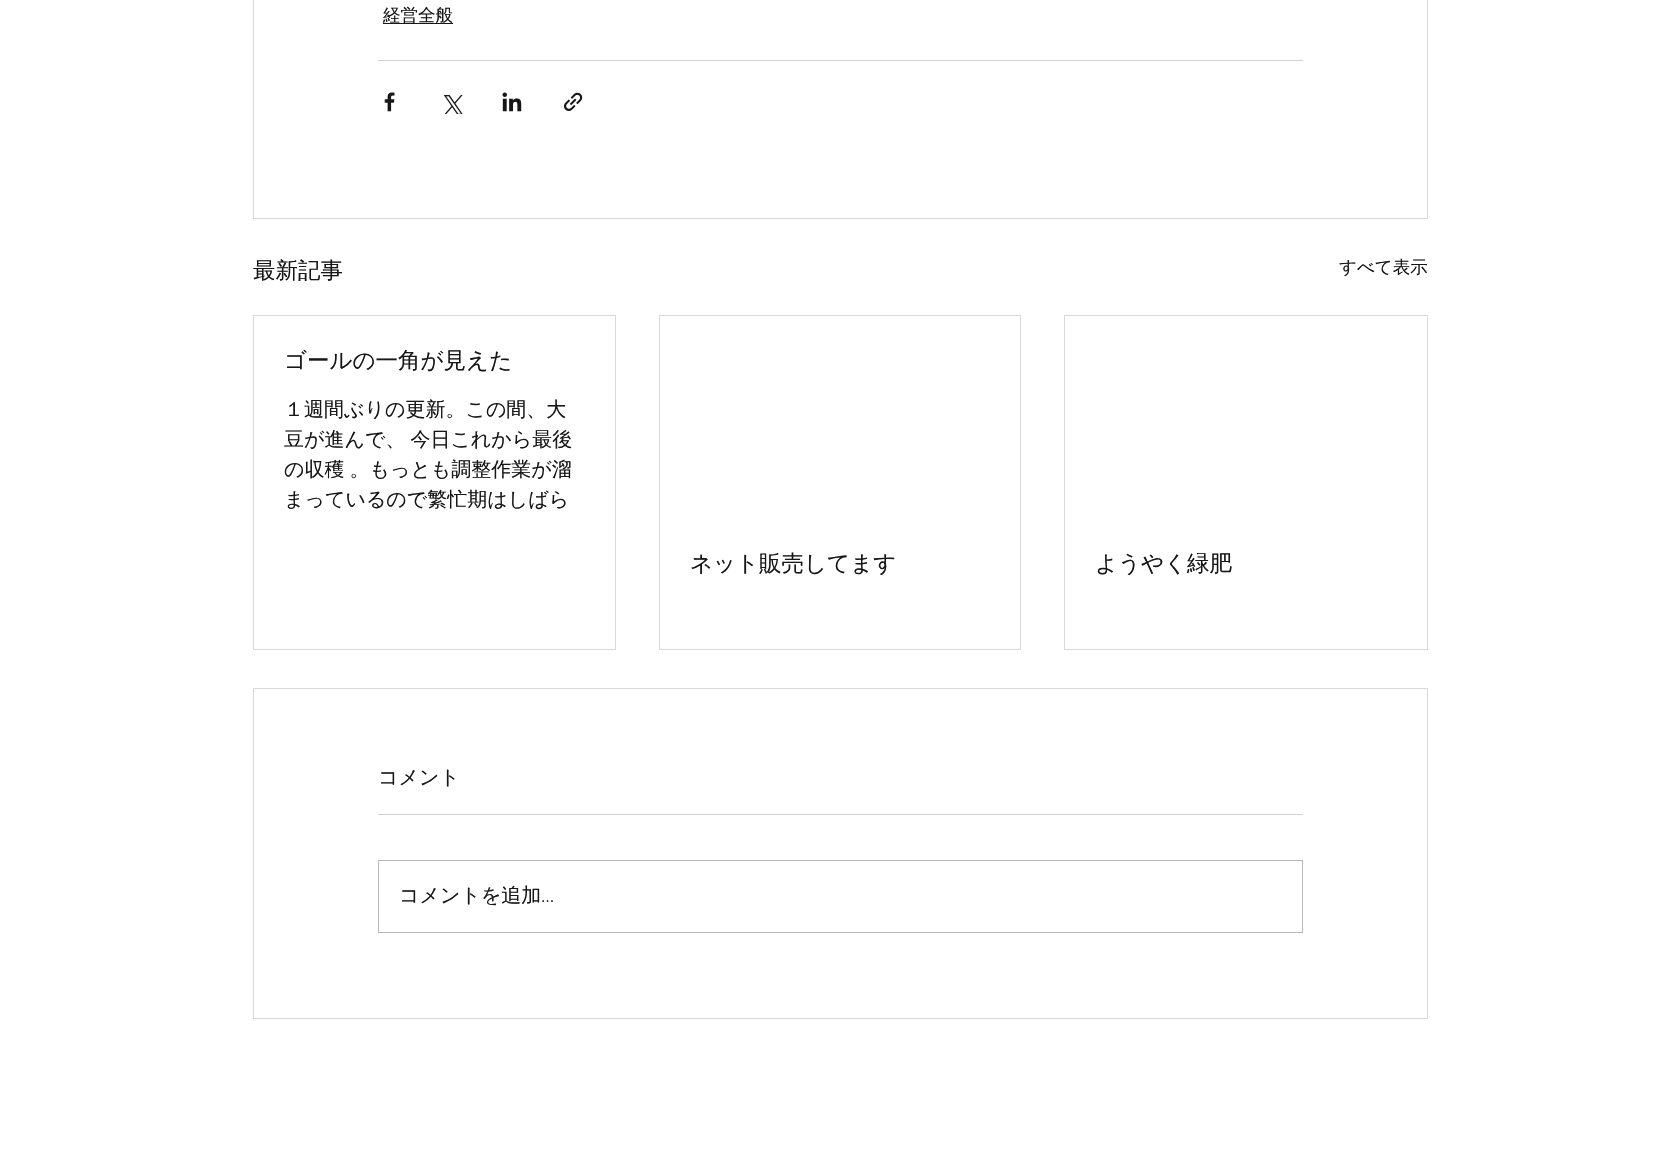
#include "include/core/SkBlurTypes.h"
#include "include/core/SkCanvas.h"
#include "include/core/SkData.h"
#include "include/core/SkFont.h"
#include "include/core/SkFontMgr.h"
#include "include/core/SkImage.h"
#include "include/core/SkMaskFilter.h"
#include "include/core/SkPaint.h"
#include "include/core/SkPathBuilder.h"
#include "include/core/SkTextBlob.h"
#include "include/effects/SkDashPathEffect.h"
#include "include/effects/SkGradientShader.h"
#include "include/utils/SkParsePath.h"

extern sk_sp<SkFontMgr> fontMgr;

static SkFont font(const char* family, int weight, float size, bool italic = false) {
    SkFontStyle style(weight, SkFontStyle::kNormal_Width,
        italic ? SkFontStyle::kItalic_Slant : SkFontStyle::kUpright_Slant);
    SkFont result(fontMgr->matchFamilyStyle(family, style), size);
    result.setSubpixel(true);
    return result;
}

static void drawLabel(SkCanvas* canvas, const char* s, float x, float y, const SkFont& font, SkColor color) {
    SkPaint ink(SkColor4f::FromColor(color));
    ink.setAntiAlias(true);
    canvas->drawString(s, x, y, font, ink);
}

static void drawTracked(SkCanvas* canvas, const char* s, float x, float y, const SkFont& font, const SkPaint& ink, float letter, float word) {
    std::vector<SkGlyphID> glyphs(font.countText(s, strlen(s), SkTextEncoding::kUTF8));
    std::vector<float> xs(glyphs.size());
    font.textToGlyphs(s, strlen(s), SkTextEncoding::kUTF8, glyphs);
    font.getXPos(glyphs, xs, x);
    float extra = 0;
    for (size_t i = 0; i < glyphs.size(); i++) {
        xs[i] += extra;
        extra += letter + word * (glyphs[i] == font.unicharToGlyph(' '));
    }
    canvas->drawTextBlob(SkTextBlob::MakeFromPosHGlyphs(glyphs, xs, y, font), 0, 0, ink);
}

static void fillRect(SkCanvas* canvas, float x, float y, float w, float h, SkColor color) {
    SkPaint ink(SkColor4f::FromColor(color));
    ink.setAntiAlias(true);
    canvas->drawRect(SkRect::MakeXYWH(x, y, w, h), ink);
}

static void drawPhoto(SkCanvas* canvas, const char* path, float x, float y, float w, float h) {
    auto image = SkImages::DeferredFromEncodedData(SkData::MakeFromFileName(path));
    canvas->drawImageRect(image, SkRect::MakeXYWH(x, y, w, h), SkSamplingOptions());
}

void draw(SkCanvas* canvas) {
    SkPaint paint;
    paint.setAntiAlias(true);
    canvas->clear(0xFFFFFFFF);
    paint.setStroke(true);
    paint.setStrokeWidth(1);
    paint.setColor(0xFFD9D9D9);
    canvas->drawRect(SkRect::MakeXYWH(253.5f, -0.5f, 1174, 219), paint);
    fillRect(canvas, 383, 23, 70, 1, 0xFF171717);
    SkFont font1 = font("WenQuanYi Zen Hei", 500, 17.5f);
    drawLabel(canvas, "経営全般", 383, 21, font1, 0xFF171717);
    fillRect(canvas, 378, 60, 925, 1, 0xFFD1D1D1);
    drawPhoto(canvas, "assets/img1.png", 384, 92, 11, 20);
    drawPhoto(canvas, "assets/img2.png", 443, 95, 20, 19);
    drawPhoto(canvas, "assets/img3.png", 502, 92, 20, 20);
    drawPhoto(canvas, "assets/img4.png", 564, 92, 19, 19);
    SkFont font2 = font("WenQuanYi Zen Hei", 500, 22.5f);
    drawLabel(canvas, "最新記事", 253, 278, font2, 0xFF171717);
    drawLabel(canvas, "すべて表示", 1339, 273, font1, 0xFF171717);
    canvas->drawRect(SkRect::MakeXYWH(253.5f, 315.5f, 362, 334), paint);
    drawLabel(canvas, "ゴールの一角が見えた", 284, 368, font2, 0xFF171717);
    SkFont font3 = font("WenQuanYi Zen Hei", 500, 20);
    drawLabel(canvas, "１週間ぶりの更新。この間、大", 284, 416, font3, 0xFF171717);
    paint.setStroke(false);
    paint.setColor(0xFF171717);
    drawTracked(canvas, "豆が進んで、 今日これから最後", 284, 446, font3, paint, 0, -1);
    drawTracked(canvas, "の収穫 。もっとも調整作業が溜", 284, 476, font3, paint, 0, -1);
    drawLabel(canvas, "まっているので繁忙期はしばら", 284, 506, font3, 0xFF171717);
    paint.setStroke(true);
    paint.setColor(0xFFD9D9D9);
    canvas->drawRect(SkRect::MakeXYWH(659.5f, 315.5f, 361, 334), paint);
    drawLabel(canvas, "ネット販売してます", 690, 571, font2, 0xFF171717);
    canvas->drawRect(SkRect::MakeXYWH(1064.5f, 315.5f, 363, 334), paint);
    drawLabel(canvas, "ようやく緑肥", 1095, 571, font2, 0xFF171717);
    canvas->drawRect(SkRect::MakeXYWH(253.5f, 688.5f, 1174, 330), paint);
    drawLabel(canvas, "コメント", 378, 784, font3, 0xFF171717);
    fillRect(canvas, 378, 814, 925, 1, 0xFFD1D1D1);
    paint.setColor(0xFFB9B9B9);
    canvas->drawRect(SkRect::MakeXYWH(378.5f, 860.5f, 924, 72), paint);
    drawLabel(canvas, "コメントを追加", 399, 902, font3, 0xFF171717);
    SkFont font4 = font("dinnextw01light", 300, 20);
    drawLabel(canvas, "…", 541, 902, font4, 0xFF171717);
}
